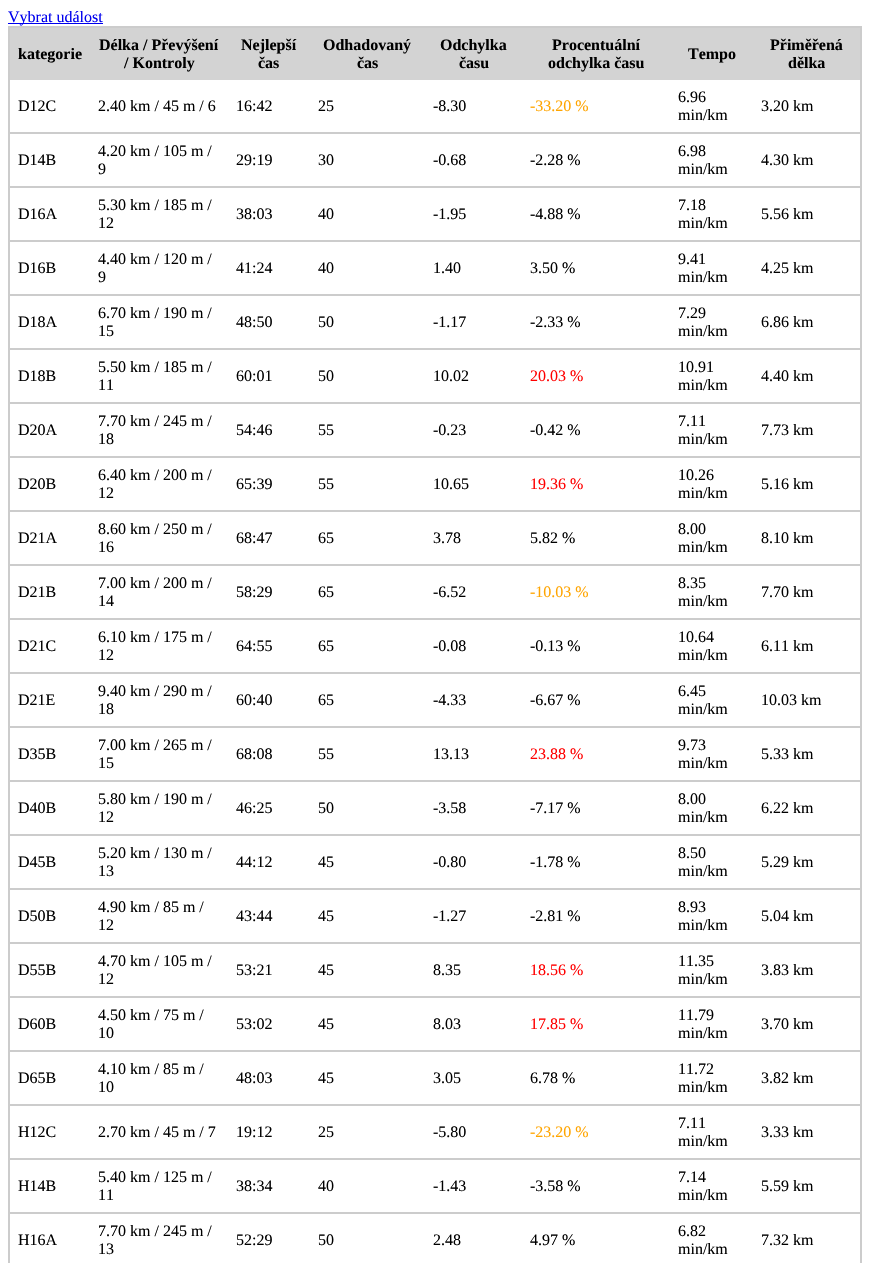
#include "include/core/SkBlurTypes.h"
#include "include/core/SkCanvas.h"
#include "include/core/SkData.h"
#include "include/core/SkFont.h"
#include "include/core/SkFontMgr.h"
#include "include/core/SkImage.h"
#include "include/core/SkMaskFilter.h"
#include "include/core/SkPaint.h"
#include "include/core/SkPathBuilder.h"
#include "include/core/SkTextBlob.h"
#include "include/effects/SkDashPathEffect.h"
#include "include/effects/SkGradientShader.h"
#include "include/utils/SkParsePath.h"

extern sk_sp<SkFontMgr> fontMgr;

static SkFont font(const char* family, int weight, float size, bool italic = false) {
    SkFontStyle style(weight, SkFontStyle::kNormal_Width,
        italic ? SkFontStyle::kItalic_Slant : SkFontStyle::kUpright_Slant);
    SkFont result(fontMgr->matchFamilyStyle(family, style), size);
    result.setSubpixel(true);
    return result;
}

static void drawLabel(SkCanvas* canvas, const char* s, float x, float y, const SkFont& font, SkColor color) {
    SkPaint ink(SkColor4f::FromColor(color));
    ink.setAntiAlias(true);
    canvas->drawString(s, x, y, font, ink);
}

static void fillRect(SkCanvas* canvas, float x, float y, float w, float h, SkColor color) {
    SkPaint ink(SkColor4f::FromColor(color));
    ink.setAntiAlias(true);
    canvas->drawRect(SkRect::MakeXYWH(x, y, w, h), ink);
}

void draw(SkCanvas* canvas) {
    SkPaint paint;
    paint.setAntiAlias(true);
    canvas->clear(0xFFFFFFFF);
    fillRect(canvas, 8, 23, 95, 1, 0xFF0000EE);
    SkFont font1 = font("Liberation Serif", 400, 16);
    drawLabel(canvas, "Vybrat událost", 8, 22, font1, 0xFF0000EE);
    paint.setStroke(true);
    paint.setStrokeWidth(2);
    paint.setColor(0xFFCCCCCC);
    canvas->drawRect(SkRect::MakeXYWH(9, 27, 852, 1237), paint);
    fillRect(canvas, 10, 28, 850, 52, 0xFFD3D3D3);
    SkFont font2 = font("Liberation Serif", 700, 16);
    drawLabel(canvas, "kategorie", 18, 59, font2, 0xFF000000);
    drawLabel(canvas, "Délka / Převýšení", 99, 50, font2, 0xFF000000);
    drawLabel(canvas, "/ Kontroly", 124, 68, font2, 0xFF000000);
    drawLabel(canvas, "Nejlepší", 241, 50, font2, 0xFF000000);
    drawLabel(canvas, "čas", 258, 68, font2, 0xFF000000);
    drawLabel(canvas, "Odhadovaný", 323, 50, font2, 0xFF000000);
    drawLabel(canvas, "čas", 357, 68, font2, 0xFF000000);
    drawLabel(canvas, "Odchylka", 440, 50, font2, 0xFF000000);
    drawLabel(canvas, "času", 459, 68, font2, 0xFF000000);
    drawLabel(canvas, "Procentuální", 552, 50, font2, 0xFF000000);
    drawLabel(canvas, "odchylka času", 548, 68, font2, 0xFF000000);
    drawLabel(canvas, "Tempo", 688, 59, font2, 0xFF000000);
    drawLabel(canvas, "Přiměřená", 770, 50, font2, 0xFF000000);
    drawLabel(canvas, "dělka", 788, 68, font2, 0xFF000000);
    fillRect(canvas, 10, 132, 850, 2, 0xFFCCCCCC);
    drawLabel(canvas, "D12C", 18, 111, font1, 0xFF000000);
    drawLabel(canvas, "2.40 km / 45 m / 6", 98, 111, font1, 0xFF000000);
    drawLabel(canvas, "16:42", 236, 111, font1, 0xFF000000);
    drawLabel(canvas, "25", 318, 111, font1, 0xFF000000);
    drawLabel(canvas, "-8.30", 433, 111, font1, 0xFF000000);
    drawLabel(canvas, "-33.20 %", 530, 111, font1, 0xFFFFA500);
    drawLabel(canvas, "6.96", 678, 102, font1, 0xFF000000);
    drawLabel(canvas, "min/km", 678, 120, font1, 0xFF000000);
    drawLabel(canvas, "3.20 km", 761, 111, font1, 0xFF000000);
    fillRect(canvas, 10, 186, 850, 2, 0xFFCCCCCC);
    drawLabel(canvas, "D14B", 18, 165, font1, 0xFF000000);
    drawLabel(canvas, "4.20 km / 105 m /", 98, 156, font1, 0xFF000000);
    drawLabel(canvas, "9", 98, 174, font1, 0xFF000000);
    drawLabel(canvas, "29:19", 236, 165, font1, 0xFF000000);
    drawLabel(canvas, "30", 318, 165, font1, 0xFF000000);
    drawLabel(canvas, "-0.68", 433, 165, font1, 0xFF000000);
    drawLabel(canvas, "-2.28 %", 530, 165, font1, 0xFF000000);
    drawLabel(canvas, "6.98", 678, 156, font1, 0xFF000000);
    drawLabel(canvas, "min/km", 678, 174, font1, 0xFF000000);
    drawLabel(canvas, "4.30 km", 761, 165, font1, 0xFF000000);
    fillRect(canvas, 10, 240, 850, 2, 0xFFCCCCCC);
    drawLabel(canvas, "D16A", 18, 219, font1, 0xFF000000);
    drawLabel(canvas, "5.30 km / 185 m /", 98, 210, font1, 0xFF000000);
    drawLabel(canvas, "12", 98, 228, font1, 0xFF000000);
    drawLabel(canvas, "38:03", 236, 219, font1, 0xFF000000);
    drawLabel(canvas, "40", 318, 219, font1, 0xFF000000);
    drawLabel(canvas, "-1.95", 433, 219, font1, 0xFF000000);
    drawLabel(canvas, "-4.88 %", 530, 219, font1, 0xFF000000);
    drawLabel(canvas, "7.18", 678, 210, font1, 0xFF000000);
    drawLabel(canvas, "min/km", 678, 228, font1, 0xFF000000);
    drawLabel(canvas, "5.56 km", 761, 219, font1, 0xFF000000);
    fillRect(canvas, 10, 294, 850, 2, 0xFFCCCCCC);
    drawLabel(canvas, "D16B", 18, 273, font1, 0xFF000000);
    drawLabel(canvas, "4.40 km / 120 m /", 98, 264, font1, 0xFF000000);
    drawLabel(canvas, "9", 98, 282, font1, 0xFF000000);
    drawLabel(canvas, "41:24", 236, 273, font1, 0xFF000000);
    drawLabel(canvas, "40", 318, 273, font1, 0xFF000000);
    drawLabel(canvas, "1.40", 433, 273, font1, 0xFF000000);
    drawLabel(canvas, "3.50 %", 530, 273, font1, 0xFF000000);
    drawLabel(canvas, "9.41", 678, 264, font1, 0xFF000000);
    drawLabel(canvas, "min/km", 678, 282, font1, 0xFF000000);
    drawLabel(canvas, "4.25 km", 761, 273, font1, 0xFF000000);
    fillRect(canvas, 10, 348, 850, 2, 0xFFCCCCCC);
    drawLabel(canvas, "D18A", 18, 327, font1, 0xFF000000);
    drawLabel(canvas, "6.70 km / 190 m /", 98, 318, font1, 0xFF000000);
    drawLabel(canvas, "15", 98, 336, font1, 0xFF000000);
    drawLabel(canvas, "48:50", 236, 327, font1, 0xFF000000);
    drawLabel(canvas, "50", 318, 327, font1, 0xFF000000);
    drawLabel(canvas, "-1.17", 433, 327, font1, 0xFF000000);
    drawLabel(canvas, "-2.33 %", 530, 327, font1, 0xFF000000);
    drawLabel(canvas, "7.29", 678, 318, font1, 0xFF000000);
    drawLabel(canvas, "min/km", 678, 336, font1, 0xFF000000);
    drawLabel(canvas, "6.86 km", 761, 327, font1, 0xFF000000);
    fillRect(canvas, 10, 402, 850, 2, 0xFFCCCCCC);
    drawLabel(canvas, "D18B", 18, 381, font1, 0xFF000000);
    drawLabel(canvas, "5.50 km / 185 m /", 98, 372, font1, 0xFF000000);
    drawLabel(canvas, "11", 98, 390, font1, 0xFF000000);
    drawLabel(canvas, "60:01", 236, 381, font1, 0xFF000000);
    drawLabel(canvas, "50", 318, 381, font1, 0xFF000000);
    drawLabel(canvas, "10.02", 433, 381, font1, 0xFF000000);
    drawLabel(canvas, "20.03 %", 530, 381, font1, 0xFFFF0000);
    drawLabel(canvas, "10.91", 678, 372, font1, 0xFF000000);
    drawLabel(canvas, "min/km", 678, 390, font1, 0xFF000000);
    drawLabel(canvas, "4.40 km", 761, 381, font1, 0xFF000000);
    fillRect(canvas, 10, 456, 850, 2, 0xFFCCCCCC);
    drawLabel(canvas, "D20A", 18, 435, font1, 0xFF000000);
    drawLabel(canvas, "7.70 km / 245 m /", 98, 426, font1, 0xFF000000);
    drawLabel(canvas, "18", 98, 444, font1, 0xFF000000);
    drawLabel(canvas, "54:46", 236, 435, font1, 0xFF000000);
    drawLabel(canvas, "55", 318, 435, font1, 0xFF000000);
    drawLabel(canvas, "-0.23", 433, 435, font1, 0xFF000000);
    drawLabel(canvas, "-0.42 %", 530, 435, font1, 0xFF000000);
    drawLabel(canvas, "7.11", 678, 426, font1, 0xFF000000);
    drawLabel(canvas, "min/km", 678, 444, font1, 0xFF000000);
    drawLabel(canvas, "7.73 km", 761, 435, font1, 0xFF000000);
    fillRect(canvas, 10, 510, 850, 2, 0xFFCCCCCC);
    drawLabel(canvas, "D20B", 18, 489, font1, 0xFF000000);
    drawLabel(canvas, "6.40 km / 200 m /", 98, 480, font1, 0xFF000000);
    drawLabel(canvas, "12", 98, 498, font1, 0xFF000000);
    drawLabel(canvas, "65:39", 236, 489, font1, 0xFF000000);
    drawLabel(canvas, "55", 318, 489, font1, 0xFF000000);
    drawLabel(canvas, "10.65", 433, 489, font1, 0xFF000000);
    drawLabel(canvas, "19.36 %", 530, 489, font1, 0xFFFF0000);
    drawLabel(canvas, "10.26", 678, 480, font1, 0xFF000000);
    drawLabel(canvas, "min/km", 678, 498, font1, 0xFF000000);
    drawLabel(canvas, "5.16 km", 761, 489, font1, 0xFF000000);
    fillRect(canvas, 10, 564, 850, 2, 0xFFCCCCCC);
    drawLabel(canvas, "D21A", 18, 543, font1, 0xFF000000);
    drawLabel(canvas, "8.60 km / 250 m /", 98, 534, font1, 0xFF000000);
    drawLabel(canvas, "16", 98, 552, font1, 0xFF000000);
    drawLabel(canvas, "68:47", 236, 543, font1, 0xFF000000);
    drawLabel(canvas, "65", 318, 543, font1, 0xFF000000);
    drawLabel(canvas, "3.78", 433, 543, font1, 0xFF000000);
    drawLabel(canvas, "5.82 %", 530, 543, font1, 0xFF000000);
    drawLabel(canvas, "8.00", 678, 534, font1, 0xFF000000);
    drawLabel(canvas, "min/km", 678, 552, font1, 0xFF000000);
    drawLabel(canvas, "8.10 km", 761, 543, font1, 0xFF000000);
    fillRect(canvas, 10, 618, 850, 2, 0xFFCCCCCC);
    drawLabel(canvas, "D21B", 18, 597, font1, 0xFF000000);
    drawLabel(canvas, "7.00 km / 200 m /", 98, 588, font1, 0xFF000000);
    drawLabel(canvas, "14", 98, 606, font1, 0xFF000000);
    drawLabel(canvas, "58:29", 236, 597, font1, 0xFF000000);
    drawLabel(canvas, "65", 318, 597, font1, 0xFF000000);
    drawLabel(canvas, "-6.52", 433, 597, font1, 0xFF000000);
    drawLabel(canvas, "-10.03 %", 530, 597, font1, 0xFFFFA500);
    drawLabel(canvas, "8.35", 678, 588, font1, 0xFF000000);
    drawLabel(canvas, "min/km", 678, 606, font1, 0xFF000000);
    drawLabel(canvas, "7.70 km", 761, 597, font1, 0xFF000000);
    fillRect(canvas, 10, 672, 850, 2, 0xFFCCCCCC);
    drawLabel(canvas, "D21C", 18, 651, font1, 0xFF000000);
    drawLabel(canvas, "6.10 km / 175 m /", 98, 642, font1, 0xFF000000);
    drawLabel(canvas, "12", 98, 660, font1, 0xFF000000);
    drawLabel(canvas, "64:55", 236, 651, font1, 0xFF000000);
    drawLabel(canvas, "65", 318, 651, font1, 0xFF000000);
    drawLabel(canvas, "-0.08", 433, 651, font1, 0xFF000000);
    drawLabel(canvas, "-0.13 %", 530, 651, font1, 0xFF000000);
    drawLabel(canvas, "10.64", 678, 642, font1, 0xFF000000);
    drawLabel(canvas, "min/km", 678, 660, font1, 0xFF000000);
    drawLabel(canvas, "6.11 km", 761, 651, font1, 0xFF000000);
    fillRect(canvas, 10, 726, 850, 2, 0xFFCCCCCC);
    drawLabel(canvas, "D21E", 18, 705, font1, 0xFF000000);
    drawLabel(canvas, "9.40 km / 290 m /", 98, 696, font1, 0xFF000000);
    drawLabel(canvas, "18", 98, 714, font1, 0xFF000000);
    drawLabel(canvas, "60:40", 236, 705, font1, 0xFF000000);
    drawLabel(canvas, "65", 318, 705, font1, 0xFF000000);
    drawLabel(canvas, "-4.33", 433, 705, font1, 0xFF000000);
    drawLabel(canvas, "-6.67 %", 530, 705, font1, 0xFF000000);
    drawLabel(canvas, "6.45", 678, 696, font1, 0xFF000000);
    drawLabel(canvas, "min/km", 678, 714, font1, 0xFF000000);
    drawLabel(canvas, "10.03 km", 761, 705, font1, 0xFF000000);
    fillRect(canvas, 10, 780, 850, 2, 0xFFCCCCCC);
    drawLabel(canvas, "D35B", 18, 759, font1, 0xFF000000);
    drawLabel(canvas, "7.00 km / 265 m /", 98, 750, font1, 0xFF000000);
    drawLabel(canvas, "15", 98, 768, font1, 0xFF000000);
    drawLabel(canvas, "68:08", 236, 759, font1, 0xFF000000);
    drawLabel(canvas, "55", 318, 759, font1, 0xFF000000);
    drawLabel(canvas, "13.13", 433, 759, font1, 0xFF000000);
    drawLabel(canvas, "23.88 %", 530, 759, font1, 0xFFFF0000);
    drawLabel(canvas, "9.73", 678, 750, font1, 0xFF000000);
    drawLabel(canvas, "min/km", 678, 768, font1, 0xFF000000);
    drawLabel(canvas, "5.33 km", 761, 759, font1, 0xFF000000);
    fillRect(canvas, 10, 834, 850, 2, 0xFFCCCCCC);
    drawLabel(canvas, "D40B", 18, 813, font1, 0xFF000000);
    drawLabel(canvas, "5.80 km / 190 m /", 98, 804, font1, 0xFF000000);
    drawLabel(canvas, "12", 98, 822, font1, 0xFF000000);
    drawLabel(canvas, "46:25", 236, 813, font1, 0xFF000000);
    drawLabel(canvas, "50", 318, 813, font1, 0xFF000000);
    drawLabel(canvas, "-3.58", 433, 813, font1, 0xFF000000);
    drawLabel(canvas, "-7.17 %", 530, 813, font1, 0xFF000000);
    drawLabel(canvas, "8.00", 678, 804, font1, 0xFF000000);
    drawLabel(canvas, "min/km", 678, 822, font1, 0xFF000000);
    drawLabel(canvas, "6.22 km", 761, 813, font1, 0xFF000000);
    fillRect(canvas, 10, 888, 850, 2, 0xFFCCCCCC);
    drawLabel(canvas, "D45B", 18, 867, font1, 0xFF000000);
    drawLabel(canvas, "5.20 km / 130 m /", 98, 858, font1, 0xFF000000);
    drawLabel(canvas, "13", 98, 876, font1, 0xFF000000);
    drawLabel(canvas, "44:12", 236, 867, font1, 0xFF000000);
    drawLabel(canvas, "45", 318, 867, font1, 0xFF000000);
    drawLabel(canvas, "-0.80", 433, 867, font1, 0xFF000000);
    drawLabel(canvas, "-1.78 %", 530, 867, font1, 0xFF000000);
    drawLabel(canvas, "8.50", 678, 858, font1, 0xFF000000);
    drawLabel(canvas, "min/km", 678, 876, font1, 0xFF000000);
    drawLabel(canvas, "5.29 km", 761, 867, font1, 0xFF000000);
    fillRect(canvas, 10, 942, 850, 2, 0xFFCCCCCC);
    drawLabel(canvas, "D50B", 18, 921, font1, 0xFF000000);
    drawLabel(canvas, "4.90 km / 85 m /", 98, 912, font1, 0xFF000000);
    drawLabel(canvas, "12", 98, 930, font1, 0xFF000000);
    drawLabel(canvas, "43:44", 236, 921, font1, 0xFF000000);
    drawLabel(canvas, "45", 318, 921, font1, 0xFF000000);
    drawLabel(canvas, "-1.27", 433, 921, font1, 0xFF000000);
    drawLabel(canvas, "-2.81 %", 530, 921, font1, 0xFF000000);
    drawLabel(canvas, "8.93", 678, 912, font1, 0xFF000000);
    drawLabel(canvas, "min/km", 678, 930, font1, 0xFF000000);
    drawLabel(canvas, "5.04 km", 761, 921, font1, 0xFF000000);
    fillRect(canvas, 10, 996, 850, 2, 0xFFCCCCCC);
    drawLabel(canvas, "D55B", 18, 975, font1, 0xFF000000);
    drawLabel(canvas, "4.70 km / 105 m /", 98, 966, font1, 0xFF000000);
    drawLabel(canvas, "12", 98, 984, font1, 0xFF000000);
    drawLabel(canvas, "53:21", 236, 975, font1, 0xFF000000);
    drawLabel(canvas, "45", 318, 975, font1, 0xFF000000);
    drawLabel(canvas, "8.35", 433, 975, font1, 0xFF000000);
    drawLabel(canvas, "18.56 %", 530, 975, font1, 0xFFFF0000);
    drawLabel(canvas, "11.35", 678, 966, font1, 0xFF000000);
    drawLabel(canvas, "min/km", 678, 984, font1, 0xFF000000);
    drawLabel(canvas, "3.83 km", 761, 975, font1, 0xFF000000);
    fillRect(canvas, 10, 1050, 850, 2, 0xFFCCCCCC);
    drawLabel(canvas, "D60B", 18, 1029, font1, 0xFF000000);
    drawLabel(canvas, "4.50 km / 75 m /", 98, 1020, font1, 0xFF000000);
    drawLabel(canvas, "10", 98, 1038, font1, 0xFF000000);
    drawLabel(canvas, "53:02", 236, 1029, font1, 0xFF000000);
    drawLabel(canvas, "45", 318, 1029, font1, 0xFF000000);
    drawLabel(canvas, "8.03", 433, 1029, font1, 0xFF000000);
    drawLabel(canvas, "17.85 %", 530, 1029, font1, 0xFFFF0000);
    drawLabel(canvas, "11.79", 678, 1020, font1, 0xFF000000);
    drawLabel(canvas, "min/km", 678, 1038, font1, 0xFF000000);
    drawLabel(canvas, "3.70 km", 761, 1029, font1, 0xFF000000);
    fillRect(canvas, 10, 1104, 850, 2, 0xFFCCCCCC);
    drawLabel(canvas, "D65B", 18, 1083, font1, 0xFF000000);
    drawLabel(canvas, "4.10 km / 85 m /", 98, 1074, font1, 0xFF000000);
    drawLabel(canvas, "10", 98, 1092, font1, 0xFF000000);
    drawLabel(canvas, "48:03", 236, 1083, font1, 0xFF000000);
    drawLabel(canvas, "45", 318, 1083, font1, 0xFF000000);
    drawLabel(canvas, "3.05", 433, 1083, font1, 0xFF000000);
    drawLabel(canvas, "6.78 %", 530, 1083, font1, 0xFF000000);
    drawLabel(canvas, "11.72", 678, 1074, font1, 0xFF000000);
    drawLabel(canvas, "min/km", 678, 1092, font1, 0xFF000000);
    drawLabel(canvas, "3.82 km", 761, 1083, font1, 0xFF000000);
    fillRect(canvas, 10, 1158, 850, 2, 0xFFCCCCCC);
    drawLabel(canvas, "H12C", 18, 1137, font1, 0xFF000000);
    drawLabel(canvas, "2.70 km / 45 m / 7", 98, 1137, font1, 0xFF000000);
    drawLabel(canvas, "19:12", 236, 1137, font1, 0xFF000000);
    drawLabel(canvas, "25", 318, 1137, font1, 0xFF000000);
    drawLabel(canvas, "-5.80", 433, 1137, font1, 0xFF000000);
    drawLabel(canvas, "-23.20 %", 530, 1137, font1, 0xFFFFA500);
    drawLabel(canvas, "7.11", 678, 1128, font1, 0xFF000000);
    drawLabel(canvas, "min/km", 678, 1146, font1, 0xFF000000);
    drawLabel(canvas, "3.33 km", 761, 1137, font1, 0xFF000000);
    fillRect(canvas, 10, 1212, 850, 2, 0xFFCCCCCC);
    drawLabel(canvas, "H14B", 18, 1191, font1, 0xFF000000);
    drawLabel(canvas, "5.40 km / 125 m /", 98, 1182, font1, 0xFF000000);
    drawLabel(canvas, "11", 98, 1200, font1, 0xFF000000);
    drawLabel(canvas, "38:34", 236, 1191, font1, 0xFF000000);
    drawLabel(canvas, "40", 318, 1191, font1, 0xFF000000);
    drawLabel(canvas, "-1.43", 433, 1191, font1, 0xFF000000);
    drawLabel(canvas, "-3.58 %", 530, 1191, font1, 0xFF000000);
    drawLabel(canvas, "7.14", 678, 1182, font1, 0xFF000000);
    drawLabel(canvas, "min/km", 678, 1200, font1, 0xFF000000);
    drawLabel(canvas, "5.59 km", 761, 1191, font1, 0xFF000000);
    drawLabel(canvas, "H16A", 18, 1245, font1, 0xFF000000);
    drawLabel(canvas, "7.70 km / 245 m /", 98, 1236, font1, 0xFF000000);
    drawLabel(canvas, "13", 98, 1254, font1, 0xFF000000);
    drawLabel(canvas, "52:29", 236, 1245, font1, 0xFF000000);
    drawLabel(canvas, "50", 318, 1245, font1, 0xFF000000);
    drawLabel(canvas, "2.48", 433, 1245, font1, 0xFF000000);
    drawLabel(canvas, "4.97 %", 530, 1245, font1, 0xFF000000);
    drawLabel(canvas, "6.82", 678, 1236, font1, 0xFF000000);
    drawLabel(canvas, "min/km", 678, 1254, font1, 0xFF000000);
    drawLabel(canvas, "7.32 km", 761, 1245, font1, 0xFF000000);
}
